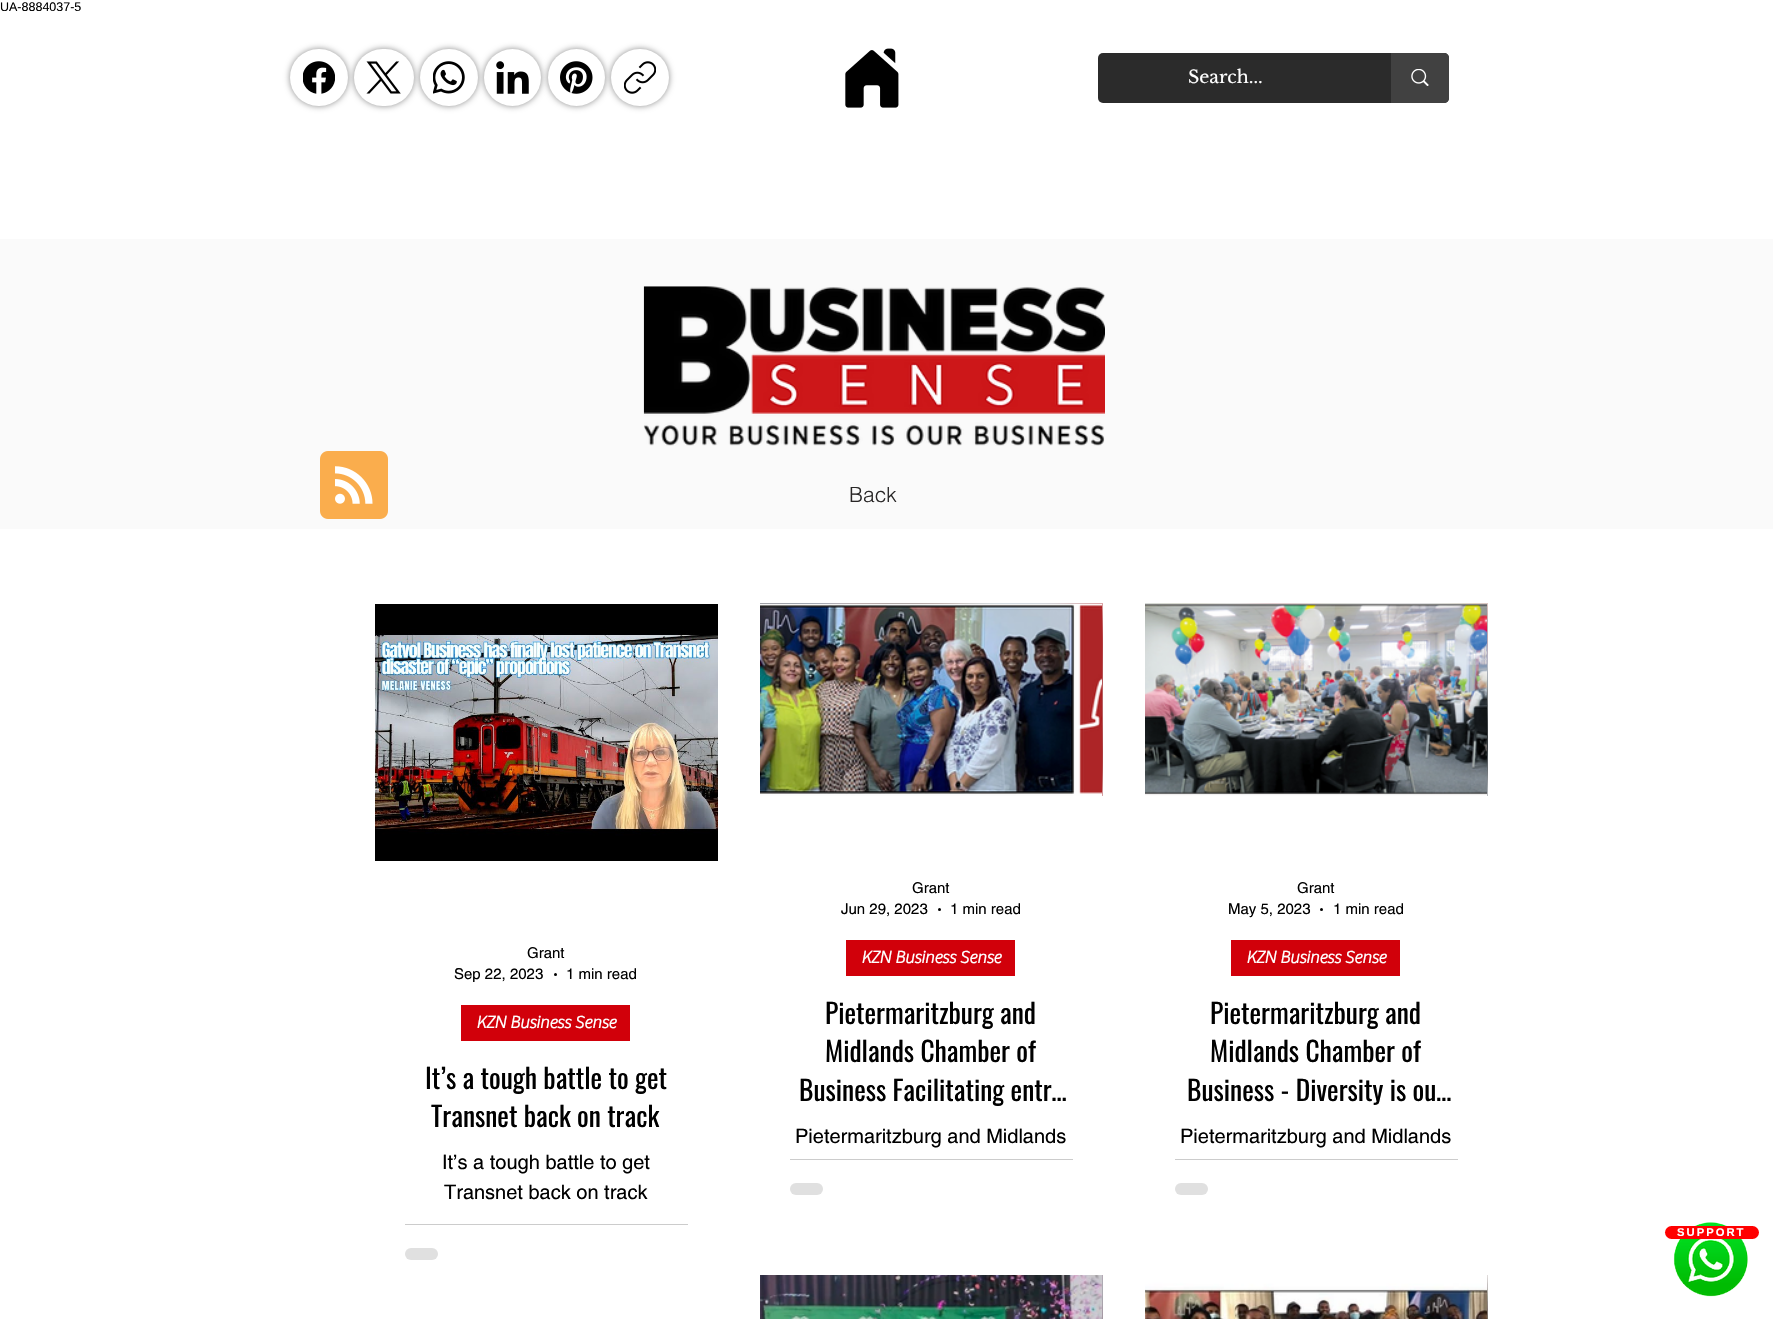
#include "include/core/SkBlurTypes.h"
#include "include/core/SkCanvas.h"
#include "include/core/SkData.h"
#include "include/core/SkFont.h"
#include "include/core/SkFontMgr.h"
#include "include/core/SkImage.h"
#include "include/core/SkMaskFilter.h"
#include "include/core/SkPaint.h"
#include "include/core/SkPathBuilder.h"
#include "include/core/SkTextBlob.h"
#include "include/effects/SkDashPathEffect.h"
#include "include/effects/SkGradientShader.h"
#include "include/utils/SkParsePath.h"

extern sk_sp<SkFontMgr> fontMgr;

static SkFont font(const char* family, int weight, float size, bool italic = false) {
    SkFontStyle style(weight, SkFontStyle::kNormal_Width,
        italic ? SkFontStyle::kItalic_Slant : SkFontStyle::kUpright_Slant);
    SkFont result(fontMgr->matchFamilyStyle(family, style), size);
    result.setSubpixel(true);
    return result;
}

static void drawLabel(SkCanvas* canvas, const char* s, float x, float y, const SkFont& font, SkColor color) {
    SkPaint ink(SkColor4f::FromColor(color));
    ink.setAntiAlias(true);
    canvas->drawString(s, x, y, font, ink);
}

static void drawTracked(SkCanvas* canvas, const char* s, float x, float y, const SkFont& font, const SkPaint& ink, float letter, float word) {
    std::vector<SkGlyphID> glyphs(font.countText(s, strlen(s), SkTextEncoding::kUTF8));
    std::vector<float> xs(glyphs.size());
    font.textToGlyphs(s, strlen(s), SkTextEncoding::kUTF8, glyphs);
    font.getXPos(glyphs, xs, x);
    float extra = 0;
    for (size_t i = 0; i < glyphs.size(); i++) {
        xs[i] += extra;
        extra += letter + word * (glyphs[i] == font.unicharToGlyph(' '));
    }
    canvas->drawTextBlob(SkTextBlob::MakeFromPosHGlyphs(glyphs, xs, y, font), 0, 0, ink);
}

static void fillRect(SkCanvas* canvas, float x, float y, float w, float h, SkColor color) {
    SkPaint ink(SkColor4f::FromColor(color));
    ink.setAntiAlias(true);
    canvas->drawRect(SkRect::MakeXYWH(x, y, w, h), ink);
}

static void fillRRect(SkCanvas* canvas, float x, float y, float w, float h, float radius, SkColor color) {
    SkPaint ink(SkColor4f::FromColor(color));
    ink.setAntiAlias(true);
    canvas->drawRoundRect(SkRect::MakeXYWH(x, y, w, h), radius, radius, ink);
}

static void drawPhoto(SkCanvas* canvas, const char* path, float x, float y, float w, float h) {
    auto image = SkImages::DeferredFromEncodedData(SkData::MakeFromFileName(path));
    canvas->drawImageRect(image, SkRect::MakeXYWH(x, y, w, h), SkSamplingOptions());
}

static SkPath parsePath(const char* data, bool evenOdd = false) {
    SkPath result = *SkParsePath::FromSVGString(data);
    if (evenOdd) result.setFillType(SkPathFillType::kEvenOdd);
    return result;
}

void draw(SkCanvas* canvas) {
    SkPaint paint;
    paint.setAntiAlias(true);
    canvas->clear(0xFFFFFFFF);
    SkFont font1 = font("Liberation Sans", 400, 12.5f);
    drawLabel(canvas, "UA-8884037-5", 0, 11, font1, 0xFF000000);
    paint.setColor(0x73000000);
    paint.setMaskFilter(SkMaskFilter::MakeBlur(kNormal_SkBlurStyle, 3));
    canvas->drawRoundRect(SkRect::MakeXYWH(290, 49, 58, 57), 28.5f, 28.5f, paint);
    paint.setMaskFilter(nullptr);
    fillRRect(canvas, 290, 49, 58, 57, 28.5f, 0xFFFFFFFF);
    drawPhoto(canvas, "assets/img1.png", 303, 61, 32, 33);
    paint.setMaskFilter(SkMaskFilter::MakeBlur(kNormal_SkBlurStyle, 3));
    canvas->drawRoundRect(SkRect::MakeXYWH(354, 49, 60, 57), 28.5f, 28.5f, paint);
    paint.setMaskFilter(nullptr);
    fillRRect(canvas, 354, 49, 60, 57, 28.5f, 0xFFFFFFFF);
    drawPhoto(canvas, "assets/img2.png", 366, 61, 35, 33);
    paint.setMaskFilter(SkMaskFilter::MakeBlur(kNormal_SkBlurStyle, 3));
    canvas->drawRoundRect(SkRect::MakeXYWH(420, 49, 58, 57), 28.5f, 28.5f, paint);
    paint.setMaskFilter(nullptr);
    fillRRect(canvas, 420, 49, 58, 57, 28.5f, 0xFFFFFFFF);
    drawPhoto(canvas, "assets/img3.png", 433, 61, 32, 33);
    paint.setMaskFilter(SkMaskFilter::MakeBlur(kNormal_SkBlurStyle, 3));
    canvas->drawRoundRect(SkRect::MakeXYWH(484, 49, 57, 57), 28.5f, 28.5f, paint);
    paint.setMaskFilter(nullptr);
    paint.setColor(0xFFFFFFFF);
    canvas->drawCircle(512.5f, 77.5f, 28.5f, paint);
    drawPhoto(canvas, "assets/img4.png", 496, 61, 33, 33);
    paint.setColor(0x73000000);
    paint.setMaskFilter(SkMaskFilter::MakeBlur(kNormal_SkBlurStyle, 3));
    canvas->drawRoundRect(SkRect::MakeXYWH(548, 49, 57, 57), 28.5f, 28.5f, paint);
    paint.setMaskFilter(nullptr);
    paint.setColor(0xFFFFFFFF);
    canvas->drawCircle(576.5f, 77.5f, 28.5f, paint);
    drawPhoto(canvas, "assets/img5.png", 560, 61, 33, 33);
    paint.setColor(0x73000000);
    paint.setMaskFilter(SkMaskFilter::MakeBlur(kNormal_SkBlurStyle, 3));
    canvas->drawRoundRect(SkRect::MakeXYWH(611, 49, 58, 57), 28.5f, 28.5f, paint);
    paint.setMaskFilter(nullptr);
    fillRRect(canvas, 611, 49, 58, 57, 28.5f, 0xFFFFFFFF);
    drawPhoto(canvas, "assets/img6.png", 624, 61, 32, 33);
    drawPhoto(canvas, "assets/img7.png", 845, 48, 54, 60);
    fillRRect(canvas, 1098, 53, 351, 50, 5, 0xFF2B2B2B);
    SkFont font2 = font("Libre Baskerville", 400, 17.5f);
    drawLabel(canvas, "Search...", 1188, 83, font2, 0xFFFFFFFF);
    paint.setColor(0xFF414141);
    canvas->drawPath(parsePath("M1391 53H1444C1447 53 1449 55 1449 58V98C1449 101 1447 103 1444 103H1391Z"), paint);
    drawPhoto(canvas, "assets/img8.png", 1411, 69, 18, 17);
    fillRect(canvas, 0, 239, 1773, 290, 0xFFFAFAFA);
    drawPhoto(canvas, "assets/img9.png", 643, 286, 462, 160);
    drawPhoto(canvas, "assets/img10.png", 320, 451, 68, 68);
    SkFont font3 = font("helvetica", 300, 21);
    drawLabel(canvas, "Back", 849, 502, font3, 0xFF282626);
    drawPhoto(canvas, "assets/img11.png", 375, 604, 343, 257);
    SkFont font4 = font("helvetica", 400, 15);
    drawLabel(canvas, "Grant", 527, 958, font4, 0xFF000000);
    drawLabel(canvas, "Sep 22, 2023", 454, 979, font4, 0xFF000000);
    paint.setColor(0xFF000000);
    canvas->drawCircle(555.5f, 974.5f, 1.5f, paint);
    drawLabel(canvas, "1 min read", 566, 979, font4, 0xFF000000);
    fillRect(canvas, 461, 1005, 169, 36, 0xFFD1000A);
    SkFont font5 = font("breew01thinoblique", 700, 17.5f);
    drawLabel(canvas, "KZN Business Sense", 476, 1028, font5, 0xFFFFFFFF);
    SkFont font6 = font("Oswald", 400, 27.5f);
    drawLabel(canvas, "It’s a tough battle to get", 425, 1089, font6, 0xFF000000);
    drawLabel(canvas, "Transnet back on track", 431, 1127, font6, 0xFF000000);
    SkFont font7 = font("helvetica", 400, 20);
    drawLabel(canvas, "It’s a tough battle to get", 442, 1169, font7, 0xFF000000);
    drawLabel(canvas, "Transnet back on track", 444, 1199, font7, 0xFF000000);
    fillRect(canvas, 405, 1224, 283, 1, 0xFFCCCCCC);
    fillRRect(canvas, 405, 1248, 33, 12, 6, 0xFFE0E0E0);
    drawPhoto(canvas, "assets/img12.png", 760, 603, 343, 193);
    drawPhoto(canvas, "assets/img13.png", 760, 604, 342, 192);
    drawLabel(canvas, "Grant", 912, 893, font4, 0xFF000000);
    drawLabel(canvas, "Jun 29, 2023", 841, 914, font4, 0xFF000000);
    canvas->drawCircle(939.5f, 909.5f, 1.5f, paint);
    drawLabel(canvas, "1 min read", 950, 914, font4, 0xFF000000);
    fillRect(canvas, 846, 940, 169, 36, 0xFFD1000A);
    drawLabel(canvas, "KZN Business Sense", 861, 963, font5, 0xFFFFFFFF);
    drawLabel(canvas, "Pietermaritzburg and", 825, 1024, font6, 0xFF000000);
    drawLabel(canvas, "Midlands Chamber of", 825, 1062, font6, 0xFF000000);
    drawLabel(canvas, "Business Facilitating entr…", 799, 1101, font6, 0xFF000000);
    drawLabel(canvas, "Pietermaritzburg and Midlands", 795, 1143, font7, 0xFF000000);
    fillRect(canvas, 790, 1159, 283, 1, 0xFFCCCCCC);
    fillRRect(canvas, 790, 1183, 33, 12, 6, 0xFFE0E0E0);
    drawPhoto(canvas, "assets/img14.png", 1145, 603, 343, 193);
    drawPhoto(canvas, "assets/img15.png", 1145, 604, 342, 192);
    drawLabel(canvas, "Grant", 1297, 893, font4, 0xFF000000);
    drawLabel(canvas, "May 5, 2023", 1228, 914, font4, 0xFF000000);
    canvas->drawCircle(1321.5f, 909.5f, 1.5f, paint);
    drawLabel(canvas, "1 min read", 1333, 914, font4, 0xFF000000);
    fillRect(canvas, 1231, 940, 169, 36, 0xFFD1000A);
    drawLabel(canvas, "KZN Business Sense", 1246, 963, font5, 0xFFFFFFFF);
    drawLabel(canvas, "Pietermaritzburg and", 1210, 1024, font6, 0xFF000000);
    drawLabel(canvas, "Midlands Chamber of", 1210, 1062, font6, 0xFF000000);
    drawLabel(canvas, "Business - Diversity is ou…", 1187, 1101, font6, 0xFF000000);
    drawLabel(canvas, "Pietermaritzburg and Midlands", 1180, 1143, font7, 0xFF000000);
    fillRect(canvas, 1175, 1159, 283, 1, 0xFFCCCCCC);
    fillRRect(canvas, 1175, 1183, 33, 12, 6, 0xFFE0E0E0);
    drawPhoto(canvas, "assets/img16.png", 760, 1275, 342, 44);
    drawPhoto(canvas, "assets/img17.png", 1102, 1275, 1, 44);
    drawPhoto(canvas, "assets/img18.png", 1145, 1275, 342, 44);
    drawPhoto(canvas, "assets/img19.png", 1487, 1275, 1, 44);
    drawPhoto(canvas, "assets/img20.png", 1673, 1222, 75, 75);
    fillRRect(canvas, 1665, 1226, 94, 13, 6.5f, 0xFFFF0000);
    SkFont font8 = font("Liberation Sans", 700, 11.25f);
    paint.setColor(0xFFFFFFFF);
    drawTracked(canvas, "SUPPORT", 1677, 1236, font8, paint, 2, 0);
}
